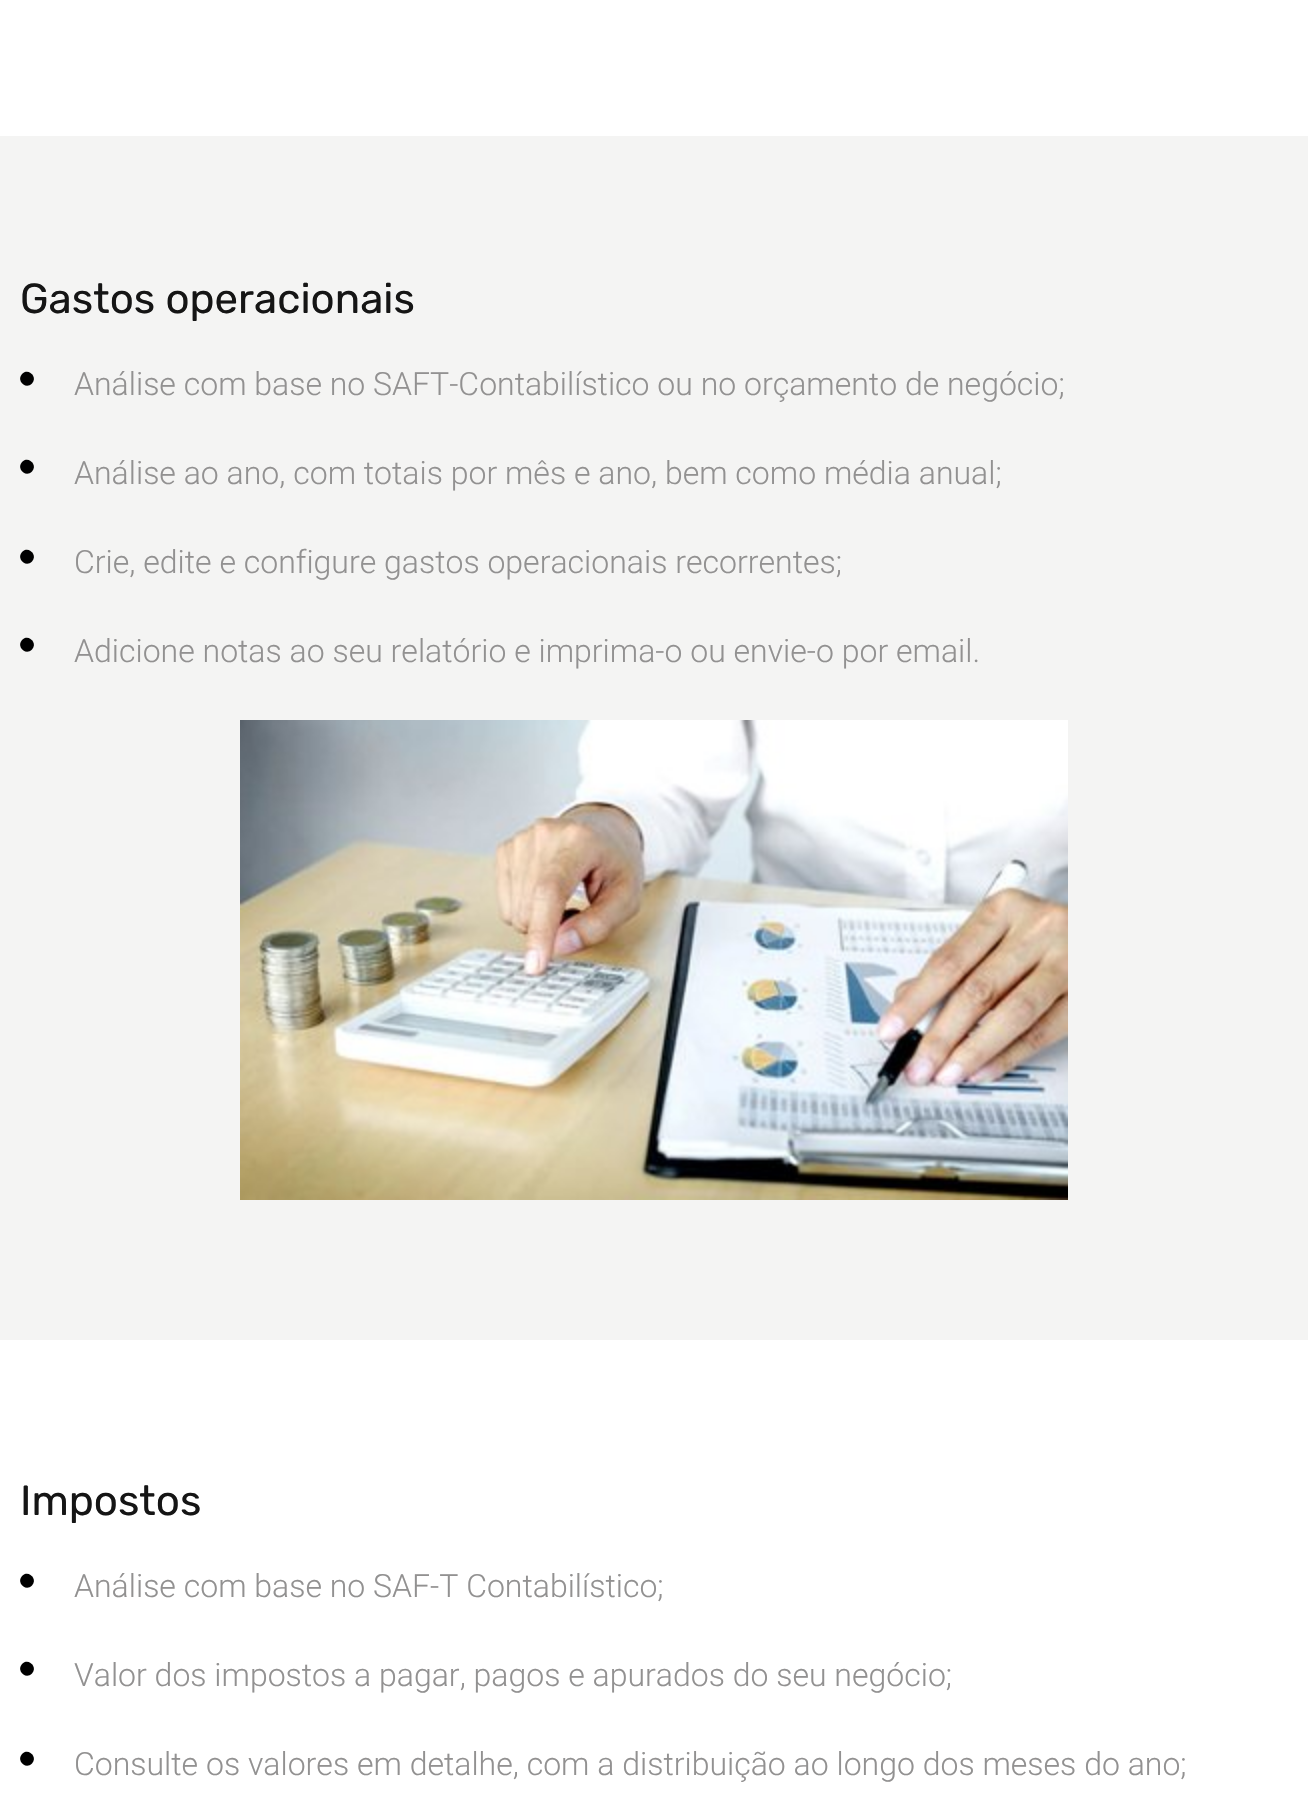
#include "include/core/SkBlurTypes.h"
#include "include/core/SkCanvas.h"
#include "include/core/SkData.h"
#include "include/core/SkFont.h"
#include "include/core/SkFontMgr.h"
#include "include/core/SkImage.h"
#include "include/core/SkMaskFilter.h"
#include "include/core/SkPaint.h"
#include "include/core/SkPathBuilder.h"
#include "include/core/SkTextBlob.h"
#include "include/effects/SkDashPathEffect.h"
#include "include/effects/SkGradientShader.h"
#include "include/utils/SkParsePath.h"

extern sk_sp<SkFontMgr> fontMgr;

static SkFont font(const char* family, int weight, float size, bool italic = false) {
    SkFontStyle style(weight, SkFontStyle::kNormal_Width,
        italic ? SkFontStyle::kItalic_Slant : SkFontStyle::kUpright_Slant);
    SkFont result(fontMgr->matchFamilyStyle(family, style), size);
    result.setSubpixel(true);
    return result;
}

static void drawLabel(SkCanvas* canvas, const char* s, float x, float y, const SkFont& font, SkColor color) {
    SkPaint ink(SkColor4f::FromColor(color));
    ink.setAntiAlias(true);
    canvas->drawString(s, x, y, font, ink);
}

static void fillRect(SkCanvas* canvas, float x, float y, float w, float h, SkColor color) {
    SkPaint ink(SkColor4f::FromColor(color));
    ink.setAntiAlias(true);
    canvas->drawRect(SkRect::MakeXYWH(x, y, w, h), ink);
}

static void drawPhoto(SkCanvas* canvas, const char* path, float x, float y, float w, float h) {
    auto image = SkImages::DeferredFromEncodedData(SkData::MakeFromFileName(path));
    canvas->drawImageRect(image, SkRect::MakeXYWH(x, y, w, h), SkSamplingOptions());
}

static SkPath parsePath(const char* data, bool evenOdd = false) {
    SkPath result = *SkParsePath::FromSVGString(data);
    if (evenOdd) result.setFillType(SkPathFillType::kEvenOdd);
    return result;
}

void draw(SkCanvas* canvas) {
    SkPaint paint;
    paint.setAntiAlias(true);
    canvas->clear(0xFFFFFFFF);
    fillRect(canvas, 0, 136, 1308, 1204, 0xFFF4F4F3);
    SkFont font1 = font("Rubik", 400, 42);
    drawLabel(canvas, "Gastos operacionais", 20, 313, font1, 0xFF151515);
    paint.setColor(0xFF000000);
    canvas->drawPath(parsePath("M22 374C28.5 367.5 38 377 32 383.5C25.5 390 16 380.5 22 374Z"), paint);
    SkFont font2 = font("Roboto", 300, 32);
    drawLabel(canvas, "Análise com base no SAFT-Contabilístico ou no orçamento de negócio;", 74, 395, font2, 0xFF929191);
    canvas->drawPath(parsePath("M22 462C28.5 455.5 38 465 32 471.5C25.5 478 16 468.5 22 462Z"), paint);
    drawLabel(canvas, "Análise ao ano, com totais por mês e ano, bem como média anual;", 74, 484, font2, 0xFF929191);
    canvas->drawPath(parsePath("M22 552C28.5 545.5 38 555 32 561.5C25.5 568 16 558.5 22 552Z"), paint);
    drawLabel(canvas, "Crie, edite e configure gastos operacionais recorrentes;", 74, 573, font2, 0xFF929191);
    canvas->drawPath(parsePath("M22 640C28.5 633.5 38 643 32 649.5C25.5 656 16 646.5 22 640Z"), paint);
    drawLabel(canvas, "Adicione notas ao seu relatório e imprima-o ou envie-o por email.", 74, 662, font2, 0xFF929191);
    drawPhoto(canvas, "assets/img1.png", 240, 720, 828, 480);
    drawLabel(canvas, "Impostos", 20, 1515, font1, 0xFF151515);
    canvas->drawPath(parsePath("M22 1576C28.5 1569.5 38 1579 32 1585.5C25.5 1592 16 1582.5 22 1576Z"), paint);
    drawLabel(canvas, "Análise com base no SAF-T Contabilístico;", 74, 1597, font2, 0xFF929191);
    canvas->drawPath(parsePath("M22 1664C28.5 1657.5 38 1667 32 1673.5C25.5 1680 16 1670.5 22 1664Z"), paint);
    drawLabel(canvas, "Valor dos impostos a pagar, pagos e apurados do seu negócio;", 74, 1686, font2, 0xFF929191);
    canvas->drawPath(parsePath("M22 1754C28.5 1747.5 38 1757 32 1763.5C25.5 1770 16 1760.5 22 1754Z"), paint);
    drawLabel(canvas, "Consulte os valores em detalhe, com a distribuição ao longo dos meses do ano;", 74, 1775, font2, 0xFF929191);
}
